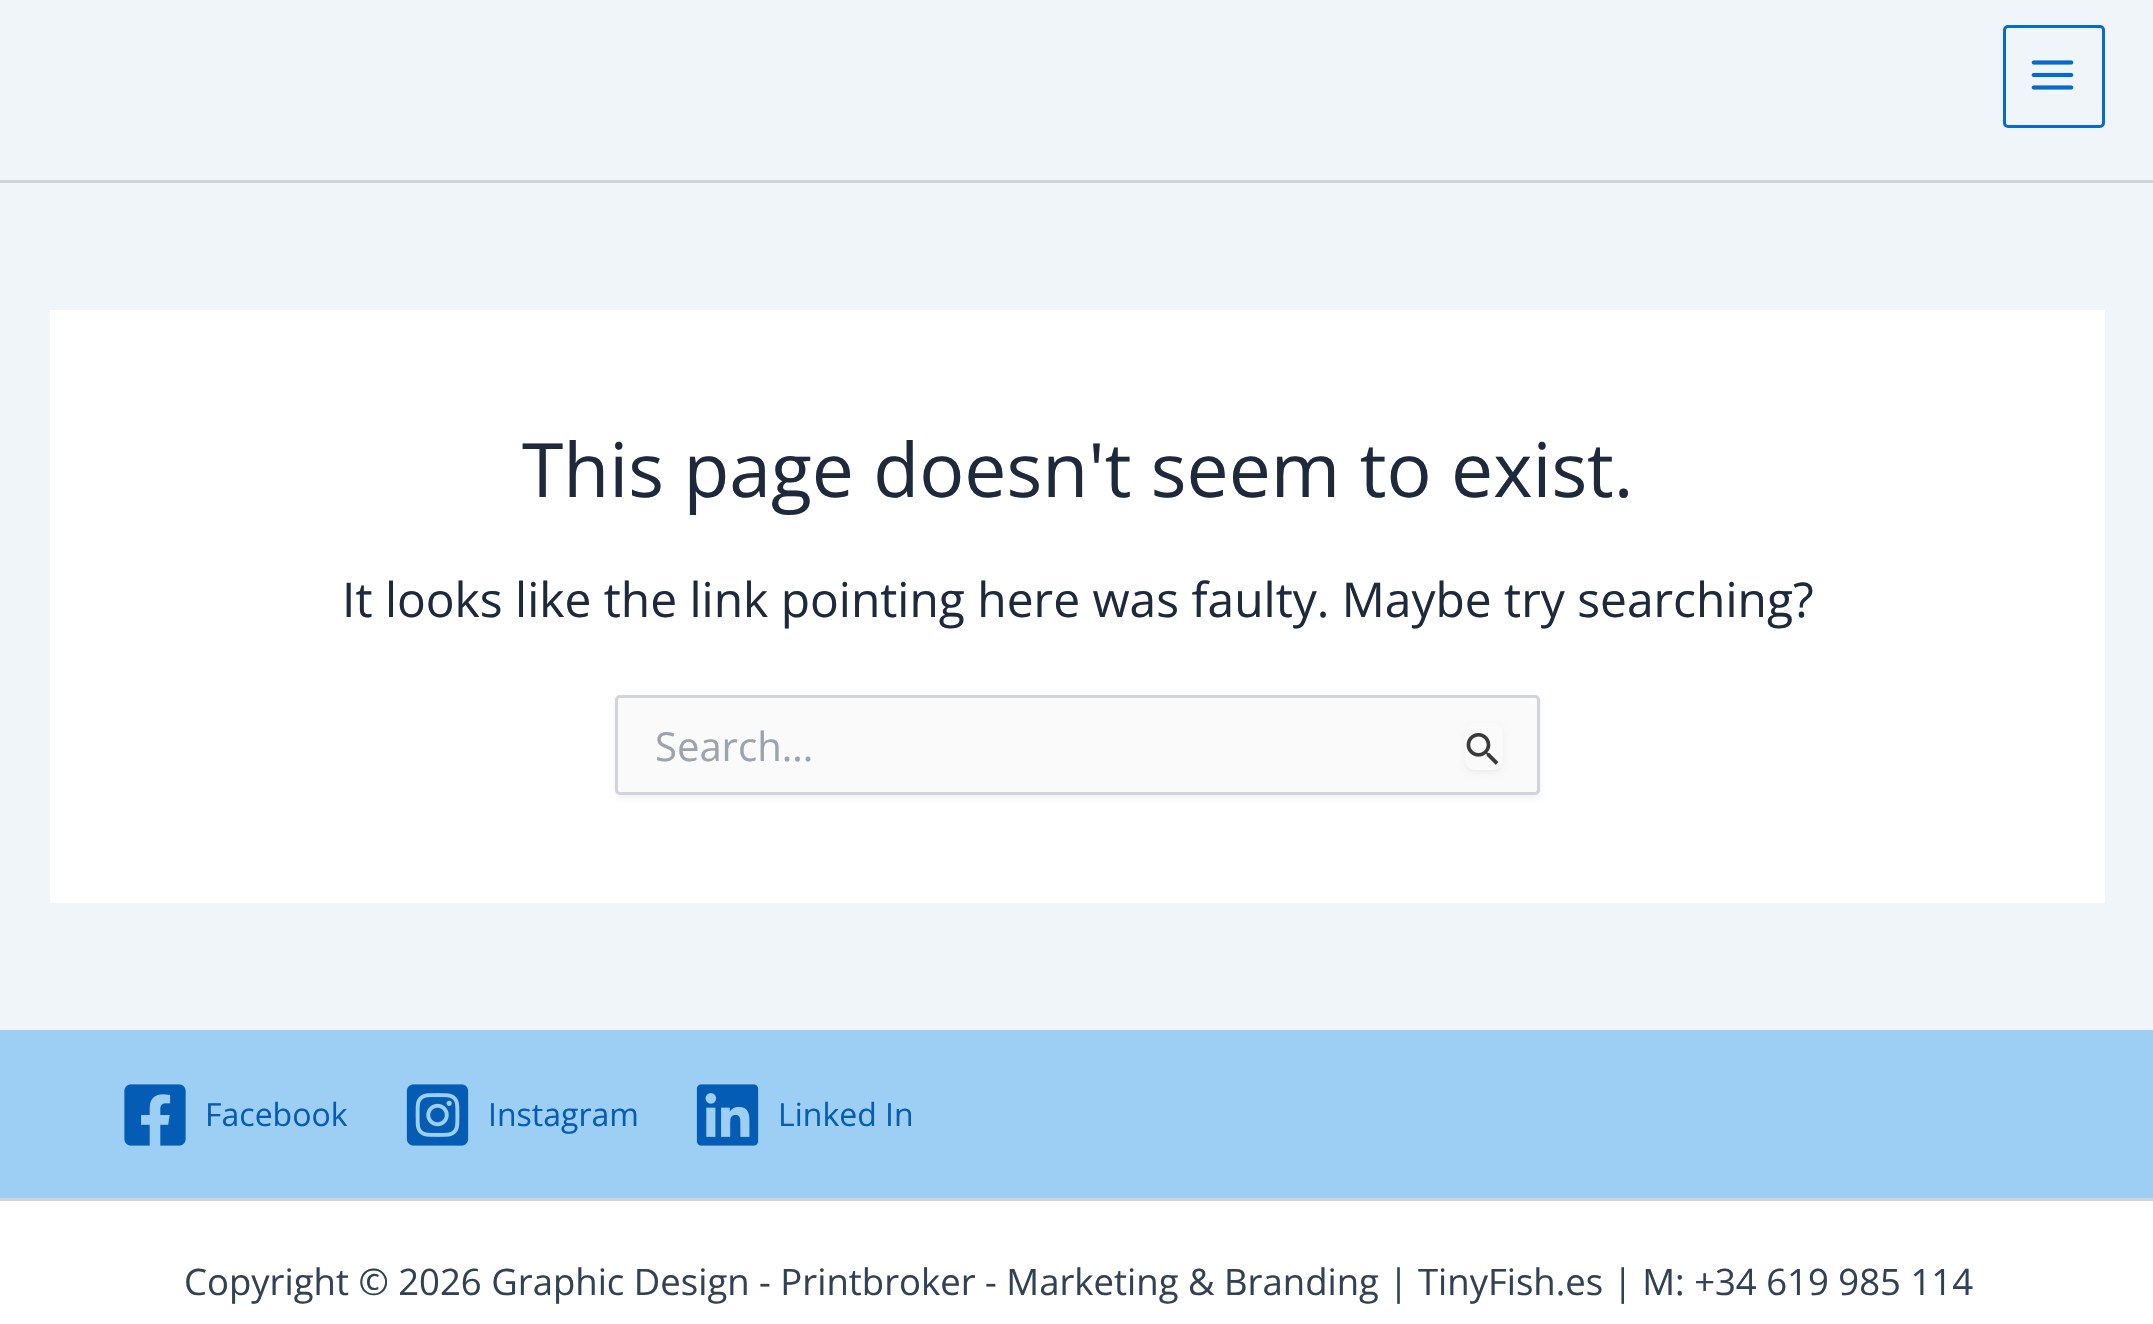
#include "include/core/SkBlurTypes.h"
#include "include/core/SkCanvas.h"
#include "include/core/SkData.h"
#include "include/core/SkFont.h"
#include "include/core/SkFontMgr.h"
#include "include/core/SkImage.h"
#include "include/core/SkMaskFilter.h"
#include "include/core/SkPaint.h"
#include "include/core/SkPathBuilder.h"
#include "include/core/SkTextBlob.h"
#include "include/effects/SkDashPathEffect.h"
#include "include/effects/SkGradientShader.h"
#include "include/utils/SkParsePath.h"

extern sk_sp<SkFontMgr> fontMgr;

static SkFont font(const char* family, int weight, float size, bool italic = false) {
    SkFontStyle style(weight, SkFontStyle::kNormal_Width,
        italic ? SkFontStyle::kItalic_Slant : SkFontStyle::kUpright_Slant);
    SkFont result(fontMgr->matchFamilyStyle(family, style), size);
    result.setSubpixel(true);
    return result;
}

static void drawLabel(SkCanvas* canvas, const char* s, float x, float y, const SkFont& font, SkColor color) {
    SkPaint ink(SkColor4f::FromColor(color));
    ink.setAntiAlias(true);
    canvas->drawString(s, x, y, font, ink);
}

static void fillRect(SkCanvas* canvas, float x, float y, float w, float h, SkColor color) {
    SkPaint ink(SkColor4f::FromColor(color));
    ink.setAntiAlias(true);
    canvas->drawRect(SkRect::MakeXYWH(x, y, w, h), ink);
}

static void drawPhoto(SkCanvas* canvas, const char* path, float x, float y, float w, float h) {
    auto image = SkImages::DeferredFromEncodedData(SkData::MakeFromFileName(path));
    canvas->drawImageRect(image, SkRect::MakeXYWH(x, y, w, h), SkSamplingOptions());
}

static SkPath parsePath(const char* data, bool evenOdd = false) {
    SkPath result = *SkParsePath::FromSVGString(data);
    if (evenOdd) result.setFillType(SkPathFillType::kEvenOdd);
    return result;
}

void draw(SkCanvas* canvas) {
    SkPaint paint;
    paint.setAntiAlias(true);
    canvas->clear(0xFFF0F5FA);
    fillRect(canvas, 0, 180, 2153, 3, 0xFFD1D5DB);
    paint.setStroke(true);
    paint.setStrokeWidth(3);
    paint.setColor(0xFF046BD2);
    canvas->drawRoundRect(SkRect::MakeXYWH(2004.5f, 26.5f, 99, 100), 3.5f, 3.5f, paint);
    drawPhoto(canvas, "assets/img1.png", 2031, 60, 43, 30);
    fillRect(canvas, 50, 310, 2055, 593, 0xFFFFFFFF);
    SkFont font1 = font("Open Sans", 400, 75);
    drawLabel(canvas, "This page doesn't seem to exist.", 522, 497, font1, 0xFF1E293B);
    SkFont font2 = font("Open Sans", 400, 47.9f);
    drawLabel(canvas, "It looks like the link pointing here was faulty. Maybe try searching?", 342, 617, font2, 0xFF1E293B);
    paint.setStroke(false);
    paint.setColor(0x0D000000);
    paint.setMaskFilter(SkMaskFilter::MakeBlur(kNormal_SkBlurStyle, 2.5f));
    canvas->drawRoundRect(SkRect::MakeXYWH(615, 698, 925, 100), 5, 5, paint);
    paint.setMaskFilter(nullptr);
    paint.setColor(0xFFFAFAFA);
    canvas->drawRoundRect(SkRect::MakeXYWH(616.5f, 696.5f, 922, 97), 3.5f, 3.5f, paint);
    paint.setStroke(true);
    paint.setColor(0xFFD1D5DB);
    canvas->drawRoundRect(SkRect::MakeXYWH(616.5f, 696.5f, 922, 97), 3.5f, 3.5f, paint);
    SkFont font3 = font("Open Sans", 400, 40);
    drawLabel(canvas, "Search...", 655, 761, font3, 0xFF9CA3AF);
    canvas->save();
    canvas->clipPath(parsePath("M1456 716H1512V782H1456ZM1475 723H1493C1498.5 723 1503 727.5 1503 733V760C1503 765.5 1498.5 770 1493 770H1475C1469.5 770 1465 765.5 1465 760V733C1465 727.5 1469.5 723 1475 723Z", true), true);
    paint.setStroke(false);
    paint.setColor(0x0D000000);
    paint.setMaskFilter(SkMaskFilter::MakeBlur(kNormal_SkBlurStyle, 2.5f));
    canvas->drawRoundRect(SkRect::MakeXYWH(1465, 725, 38, 48), 10, 10, paint);
    paint.setMaskFilter(nullptr);
    canvas->restore();
    drawPhoto(canvas, "assets/img2.png", 1466, 732, 32, 33);
    fillRect(canvas, 0, 1030, 2153, 168, 0xFF9DCFF4);
    drawPhoto(canvas, "assets/img3.png", 124, 1084, 62, 62);
    SkFont font4 = font("Open Sans", 400, 32);
    drawLabel(canvas, "Facebook", 205, 1126, font4, 0xFF045CB4);
    drawPhoto(canvas, "assets/img4.png", 406, 1084, 63, 62);
    drawLabel(canvas, "Instagram", 488, 1126, font4, 0xFF045CB4);
    drawPhoto(canvas, "assets/img5.png", 696, 1084, 63, 62);
    drawLabel(canvas, "Linked In", 778, 1126, font4, 0xFF045CB4);
    fillRect(canvas, 0, 1201, 2153, 123, 0xFFFFFFFF);
    fillRect(canvas, 0, 1198, 2153, 3, 0xFFD1D5DB);
    SkFont font5 = font("Open Sans", 400, 36.5f);
    drawLabel(canvas, "Copyright © 2026 Graphic Design - Printbroker - Marketing & Branding | TinyFish.es | M: +34 619 985 114", 184, 1295, font5, 0xFF334155);
}
